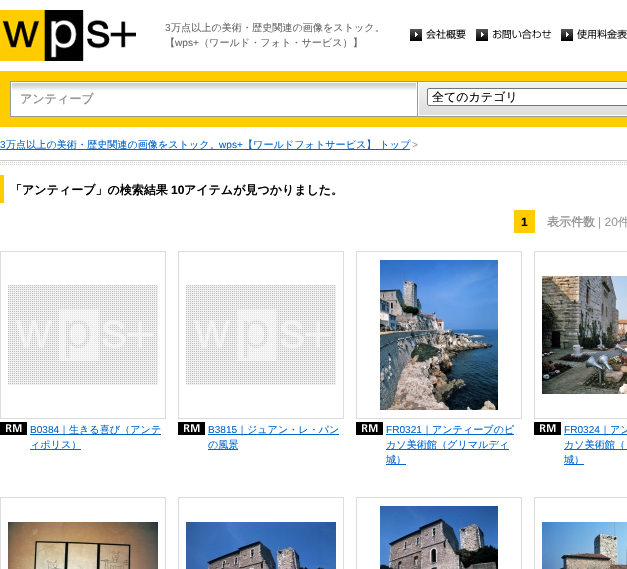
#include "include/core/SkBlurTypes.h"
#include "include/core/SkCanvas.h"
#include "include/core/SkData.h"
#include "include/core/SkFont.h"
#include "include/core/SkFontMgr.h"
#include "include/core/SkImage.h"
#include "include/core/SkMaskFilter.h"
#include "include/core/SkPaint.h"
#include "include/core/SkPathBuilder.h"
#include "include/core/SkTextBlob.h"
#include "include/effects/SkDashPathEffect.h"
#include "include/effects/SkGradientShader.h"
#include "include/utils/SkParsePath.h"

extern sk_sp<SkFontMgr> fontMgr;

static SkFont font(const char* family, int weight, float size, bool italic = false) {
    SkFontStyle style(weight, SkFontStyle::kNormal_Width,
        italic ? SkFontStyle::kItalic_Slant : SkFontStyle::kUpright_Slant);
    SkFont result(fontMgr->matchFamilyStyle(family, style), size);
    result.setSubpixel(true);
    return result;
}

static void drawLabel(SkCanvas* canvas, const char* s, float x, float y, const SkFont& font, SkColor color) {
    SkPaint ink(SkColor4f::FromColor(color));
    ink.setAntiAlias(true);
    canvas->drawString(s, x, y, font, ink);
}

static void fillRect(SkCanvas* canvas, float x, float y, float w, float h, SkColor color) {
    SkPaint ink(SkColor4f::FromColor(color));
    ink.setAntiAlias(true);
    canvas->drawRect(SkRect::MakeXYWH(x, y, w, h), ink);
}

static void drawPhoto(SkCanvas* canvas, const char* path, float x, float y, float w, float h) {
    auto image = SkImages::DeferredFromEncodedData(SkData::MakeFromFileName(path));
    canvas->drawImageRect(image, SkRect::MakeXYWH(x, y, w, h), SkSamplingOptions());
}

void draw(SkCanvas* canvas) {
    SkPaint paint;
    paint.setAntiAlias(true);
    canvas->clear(0xFFFFFFFF);
    drawPhoto(canvas, "assets/img1.png", 0, 10, 136, 51);
    SkFont font1 = font("Liberation Sans", 400, 10.1f);
    drawLabel(canvas, "3", 165, 31, font1, 0xFF666666);
    SkFont font2 = font("WenQuanYi Zen Hei", 500, 10.1f);
    drawLabel(canvas, "万点以上の美術・歴史関連の画像をストック。", 171, 31, font2, 0xFF666666);
    drawLabel(canvas, "【", 165, 46, font2, 0xFF666666);
    drawLabel(canvas, "wps+", 175, 46, font1, 0xFF666666);
    drawLabel(canvas, "（ワールド・フォト・サービス）】", 199, 46, font2, 0xFF666666);
    drawPhoto(canvas, "assets/img2.png", 410, 29, 56, 12);
    drawPhoto(canvas, "assets/img3.png", 476, 29, 75, 12);
    drawPhoto(canvas, "assets/img4.png", 561, 29, 66, 12);
    fillRect(canvas, 0, 71, 627, 56, 0xFFFFCC00);
    drawPhoto(canvas, "assets/img5.png", 10, 81, 407, 36);
    SkFont font3 = font("WenQuanYi Zen Hei", 700, 12);
    drawLabel(canvas, "アンティーブ", 20, 103, font3, 0xFF999999);
    drawPhoto(canvas, "assets/img6.png", 417, 81, 210, 36);
    paint.setColor(0xFFFFFFFF);
    canvas->drawRoundRect(SkRect::MakeXYWH(427.5f, 88.5f, 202, 17), 1.5f, 1.5f, paint);
    paint.setStroke(true);
    paint.setStrokeWidth(1);
    paint.setColor(0xFF767676);
    canvas->drawRoundRect(SkRect::MakeXYWH(427.5f, 88.5f, 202, 17), 1.5f, 1.5f, paint);
    SkFont font4 = font("WenQuanYi Zen Hei", 500, 12);
    drawLabel(canvas, "全てのカテゴリ", 432, 101, font4, 0xFF000000);
    drawLabel(canvas, "3", 0, 148, font1, 0xFF0066CC);
    fillRect(canvas, 0, 149, 410, 1, 0xFF0066CC);
    drawLabel(canvas, "万点以上の美術・歴史関連の画像をストック。", 6, 148, font2, 0xFF0066CC);
    drawLabel(canvas, "wps+", 219, 148, font1, 0xFF0066CC);
    drawLabel(canvas, "【ワールドフォトサービス】 トップ", 243, 148, font2, 0xFF0066CC);
    drawLabel(canvas, ">", 412, 148, font1, 0xFF999999);
    drawPhoto(canvas, "assets/img7.png", 0, 160, 627, 5);
    fillRect(canvas, 0, 175, 4, 28, 0xFFFFCC00);
    drawLabel(canvas, "「アンティーブ」の検索結果", 10, 194, font3, 0xFF000000);
    SkFont font5 = font("Liberation Sans", 700, 12);
    drawLabel(canvas, "10", 171, 194, font5, 0xFF000000);
    drawLabel(canvas, "アイテムが見つかりました。", 184, 194, font3, 0xFF000000);
    fillRect(canvas, 514, 210, 21, 23, 0xFFFFCC00);
    drawLabel(canvas, "1", 521, 226, font5, 0xFF000000);
    drawLabel(canvas, "表示件数", 547, 226, font3, 0xFF999999);
    SkFont font6 = font("Liberation Sans", 400, 12);
    drawLabel(canvas, "| 20", 598, 226, font6, 0xFF999999);
    drawLabel(canvas, "件", 618, 226, font4, 0xFF999999);
    fillRect(canvas, 0, 251, 166, 1, 0xFFDCDCDC);
    fillRect(canvas, 165, 251, 1, 168, 0xFFDCDCDC);
    fillRect(canvas, 0, 418, 166, 1, 0xFFDCDCDC);
    fillRect(canvas, 0, 251, 1, 168, 0xFFDCDCDC);
    drawPhoto(canvas, "assets/img8.png", 8, 285, 150, 100);
    drawPhoto(canvas, "assets/img9.png", 0, 422, 27, 13);
    drawLabel(canvas, "B0384", 30, 433, font1, 0xFF0066CC);
    fillRect(canvas, 30, 434, 131, 1, 0xFF0066CC);
    drawLabel(canvas, "｜生きる喜び（アンテ", 59, 433, font2, 0xFF0066CC);
    fillRect(canvas, 30, 449, 51, 1, 0xFF0066CC);
    drawLabel(canvas, "ィポリス）", 30, 448, font2, 0xFF0066CC);
    fillRect(canvas, 178, 251, 166, 1, 0xFFDCDCDC);
    fillRect(canvas, 343, 251, 1, 168, 0xFFDCDCDC);
    fillRect(canvas, 178, 418, 166, 1, 0xFFDCDCDC);
    fillRect(canvas, 178, 251, 1, 168, 0xFFDCDCDC);
    drawPhoto(canvas, "assets/img8.png", 186, 285, 150, 100);
    drawPhoto(canvas, "assets/img9.png", 178, 422, 27, 13);
    drawLabel(canvas, "B3815", 208, 433, font1, 0xFF0066CC);
    fillRect(canvas, 208, 434, 131, 1, 0xFF0066CC);
    drawLabel(canvas, "｜ジュアン・レ・パン", 237, 433, font2, 0xFF0066CC);
    fillRect(canvas, 208, 449, 30, 1, 0xFF0066CC);
    drawLabel(canvas, "の風景", 208, 448, font2, 0xFF0066CC);
    fillRect(canvas, 356, 251, 166, 1, 0xFFDCDCDC);
    fillRect(canvas, 521, 251, 1, 168, 0xFFDCDCDC);
    fillRect(canvas, 356, 418, 166, 1, 0xFFDCDCDC);
    fillRect(canvas, 356, 251, 1, 168, 0xFFDCDCDC);
    drawPhoto(canvas, "assets/img10.png", 380, 260, 118, 150);
    drawPhoto(canvas, "assets/img9.png", 356, 422, 27, 13);
    drawLabel(canvas, "FR0321", 386, 433, font1, 0xFF0066CC);
    fillRect(canvas, 386, 434, 128, 1, 0xFF0066CC);
    drawLabel(canvas, "｜アンティーブのピ", 422, 433, font2, 0xFF0066CC);
    fillRect(canvas, 386, 449, 123, 1, 0xFF0066CC);
    drawLabel(canvas, "カソ美術館（グリマルディ", 386, 448, font2, 0xFF0066CC);
    fillRect(canvas, 386, 464, 20, 1, 0xFF0066CC);
    drawLabel(canvas, "城）", 386, 463, font2, 0xFF0066CC);
    fillRect(canvas, 534, 251, 93, 1, 0xFFDCDCDC);
    fillRect(canvas, 534, 418, 93, 1, 0xFFDCDCDC);
    fillRect(canvas, 534, 251, 1, 168, 0xFFDCDCDC);
    drawPhoto(canvas, "assets/img11.png", 542, 276, 85, 118);
    drawPhoto(canvas, "assets/img9.png", 534, 422, 27, 13);
    drawLabel(canvas, "FR0324", 564, 433, font1, 0xFF0066CC);
    fillRect(canvas, 564, 434, 63, 1, 0xFF0066CC);
    drawLabel(canvas, "｜アン", 600, 433, font2, 0xFF0066CC);
    fillRect(canvas, 564, 449, 63, 1, 0xFF0066CC);
    drawLabel(canvas, "カソ美術館（", 564, 448, font2, 0xFF0066CC);
    fillRect(canvas, 564, 464, 20, 1, 0xFF0066CC);
    drawLabel(canvas, "城）", 564, 463, font2, 0xFF0066CC);
    fillRect(canvas, 0, 497, 166, 1, 0xFFDCDCDC);
    fillRect(canvas, 165, 497, 1, 72, 0xFFDCDCDC);
    fillRect(canvas, 0, 497, 1, 72, 0xFFDCDCDC);
    drawPhoto(canvas, "assets/img12.png", 8, 522, 150, 47);
    fillRect(canvas, 178, 497, 166, 1, 0xFFDCDCDC);
    fillRect(canvas, 343, 497, 1, 72, 0xFFDCDCDC);
    fillRect(canvas, 178, 497, 1, 72, 0xFFDCDCDC);
    drawPhoto(canvas, "assets/img13.png", 186, 522, 150, 47);
    fillRect(canvas, 356, 497, 166, 1, 0xFFDCDCDC);
    fillRect(canvas, 521, 497, 1, 72, 0xFFDCDCDC);
    fillRect(canvas, 356, 497, 1, 72, 0xFFDCDCDC);
    drawPhoto(canvas, "assets/img14.png", 380, 506, 118, 63);
    fillRect(canvas, 534, 497, 93, 1, 0xFFDCDCDC);
    fillRect(canvas, 534, 497, 1, 72, 0xFFDCDCDC);
    drawPhoto(canvas, "assets/img15.png", 542, 522, 85, 47);
}
